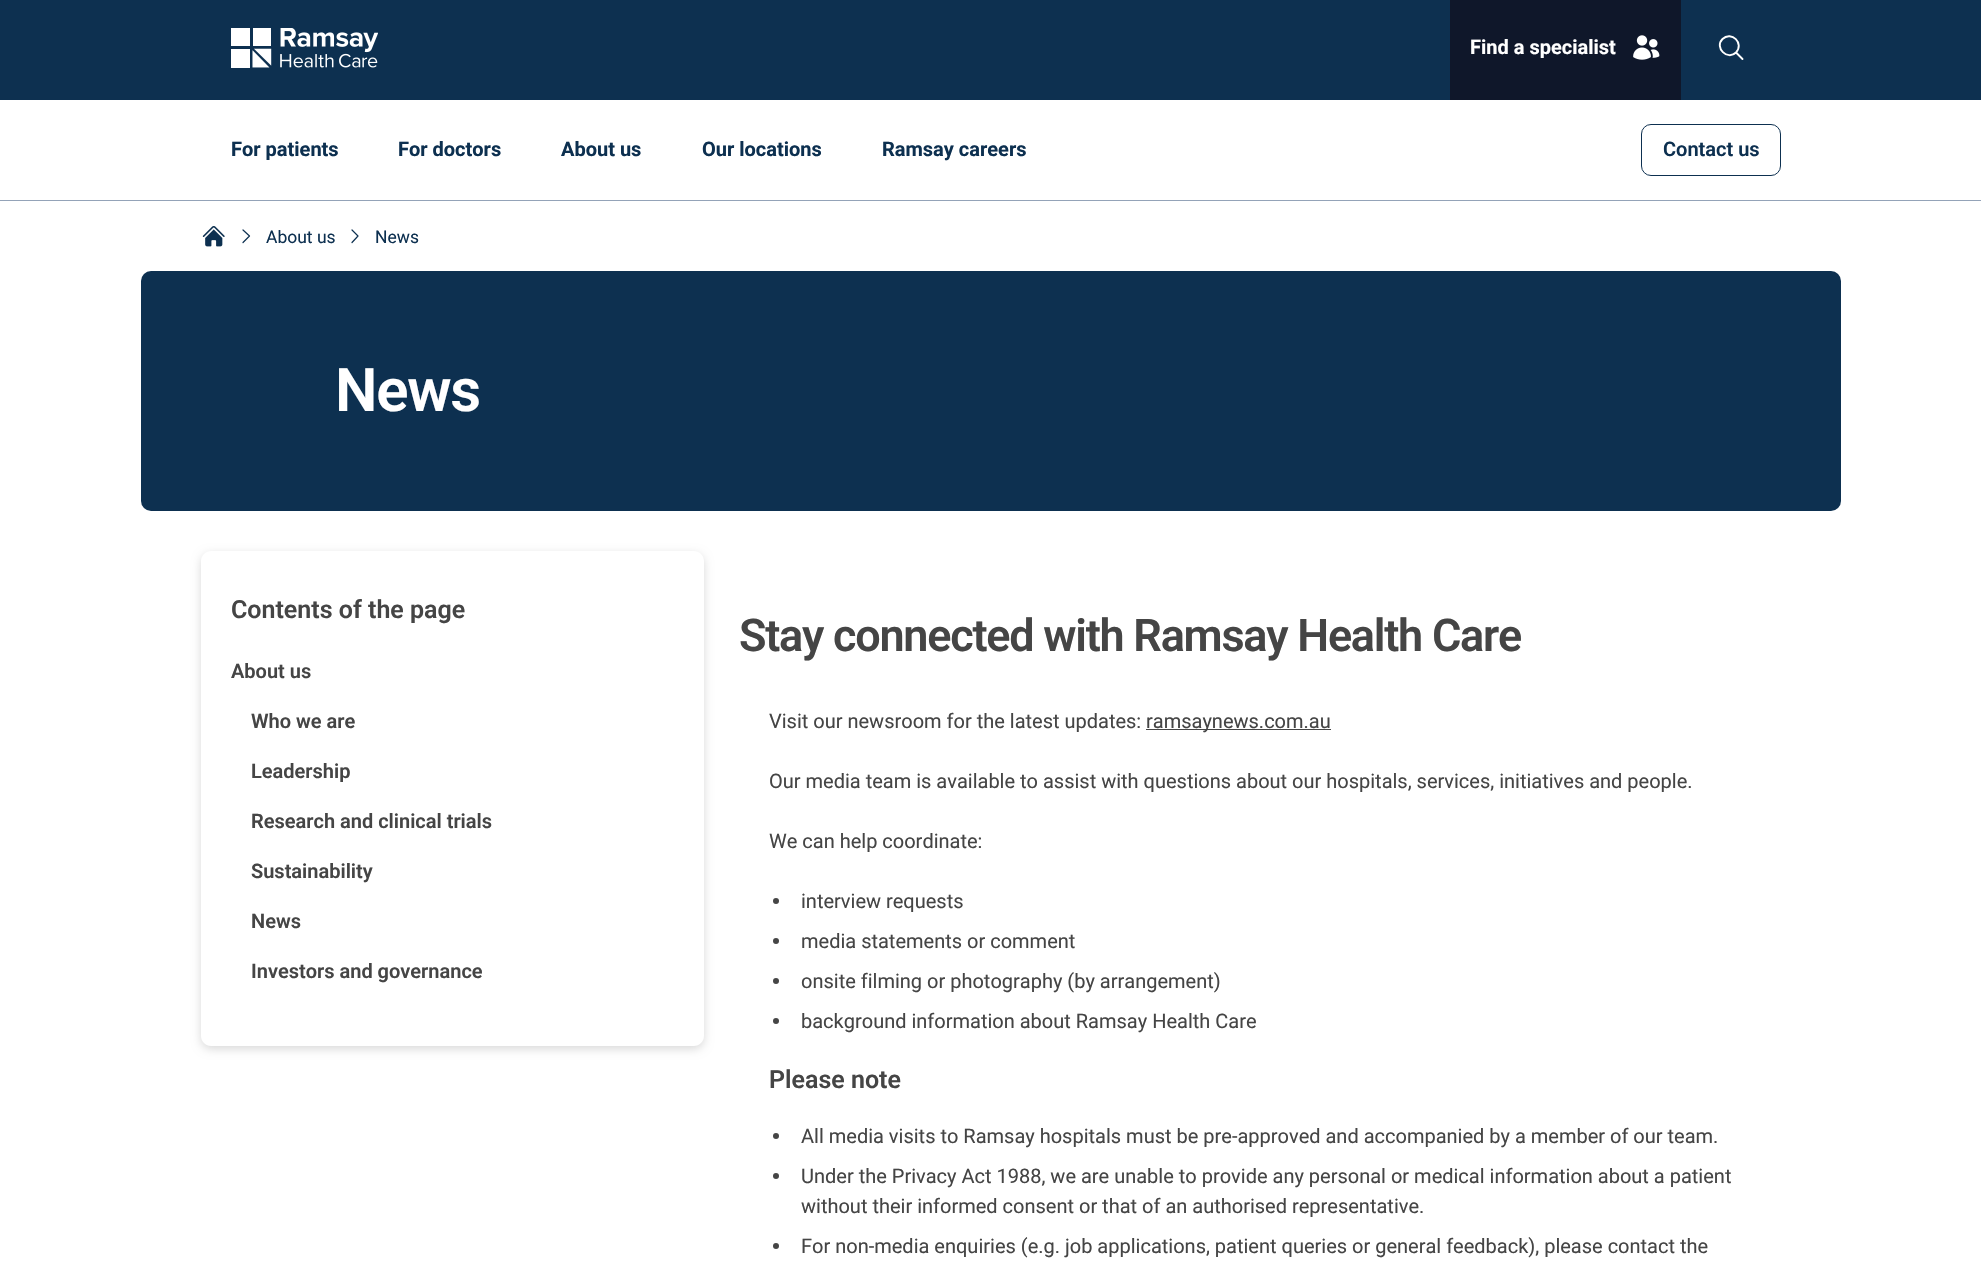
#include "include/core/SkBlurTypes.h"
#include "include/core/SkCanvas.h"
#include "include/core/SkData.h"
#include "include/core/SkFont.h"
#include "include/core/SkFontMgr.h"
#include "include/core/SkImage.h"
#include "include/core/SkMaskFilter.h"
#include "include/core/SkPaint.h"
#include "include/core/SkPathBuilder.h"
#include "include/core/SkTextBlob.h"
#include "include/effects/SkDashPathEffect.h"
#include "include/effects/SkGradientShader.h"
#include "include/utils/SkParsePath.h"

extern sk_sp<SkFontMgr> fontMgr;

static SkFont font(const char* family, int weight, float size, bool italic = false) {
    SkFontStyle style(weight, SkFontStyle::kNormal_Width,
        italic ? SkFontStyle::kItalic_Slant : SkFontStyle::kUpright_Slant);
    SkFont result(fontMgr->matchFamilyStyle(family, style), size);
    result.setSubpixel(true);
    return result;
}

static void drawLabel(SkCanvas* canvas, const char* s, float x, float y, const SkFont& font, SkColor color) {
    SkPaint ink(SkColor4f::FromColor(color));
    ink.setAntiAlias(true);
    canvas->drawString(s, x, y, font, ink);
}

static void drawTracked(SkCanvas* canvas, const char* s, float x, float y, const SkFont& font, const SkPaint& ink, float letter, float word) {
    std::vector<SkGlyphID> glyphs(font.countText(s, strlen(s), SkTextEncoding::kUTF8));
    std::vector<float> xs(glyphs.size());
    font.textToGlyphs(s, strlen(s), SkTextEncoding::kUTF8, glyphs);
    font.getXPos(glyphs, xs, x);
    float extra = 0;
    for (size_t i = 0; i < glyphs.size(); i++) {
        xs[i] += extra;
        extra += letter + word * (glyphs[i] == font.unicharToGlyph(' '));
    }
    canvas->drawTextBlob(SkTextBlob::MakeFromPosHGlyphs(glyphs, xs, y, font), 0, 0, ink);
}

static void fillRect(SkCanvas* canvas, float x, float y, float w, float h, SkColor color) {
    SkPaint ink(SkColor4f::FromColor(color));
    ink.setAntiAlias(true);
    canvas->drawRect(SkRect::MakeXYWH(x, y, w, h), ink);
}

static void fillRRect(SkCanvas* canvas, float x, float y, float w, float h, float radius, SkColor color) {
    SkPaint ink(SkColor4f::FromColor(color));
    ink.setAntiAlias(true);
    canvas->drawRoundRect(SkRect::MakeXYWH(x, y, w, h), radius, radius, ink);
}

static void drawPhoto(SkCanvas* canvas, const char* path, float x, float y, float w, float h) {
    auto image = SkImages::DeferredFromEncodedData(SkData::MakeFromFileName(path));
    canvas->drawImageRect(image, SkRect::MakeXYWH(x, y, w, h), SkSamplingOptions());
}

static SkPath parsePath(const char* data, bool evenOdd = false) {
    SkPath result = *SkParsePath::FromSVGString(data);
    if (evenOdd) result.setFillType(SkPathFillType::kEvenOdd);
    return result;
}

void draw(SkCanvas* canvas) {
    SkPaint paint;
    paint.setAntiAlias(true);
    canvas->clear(0xFFFFFFFF);
    fillRect(canvas, 0, 0, 1981, 100, 0xFF0D3050);
    drawPhoto(canvas, "assets/img1.png", 231, 28, 147, 40);
    fillRect(canvas, 1450, 0, 231, 100, 0xFF0F172A);
    SkFont font1 = font("Roboto", 700, 20);
    drawLabel(canvas, "Find a specialist", 1470, 54, font1, 0xFFFFFFFF);
    drawPhoto(canvas, "assets/img2.png", 1633, 35, 27, 25);
    paint.setStroke(true);
    paint.setStrokeWidth(1.9f);
    paint.setStrokeCap(SkPaint::kRound_Cap);
    paint.setStrokeJoin(SkPaint::kRound_Join);
    paint.setColor(0xFFFFFFFF);
    canvas->drawPath(parsePath("M1742.5 59L1736 52.5M1736 52.5C1744.5 43.5 1731.5 30.5 1722.5 39C1714 47.5 1727.5 61 1736 52.5Z"), paint);
    fillRect(canvas, 0, 200, 1981, 1, 0xFF94A3B8);
    drawLabel(canvas, "For patients", 231, 156, font1, 0xFF0D3050);
    drawLabel(canvas, "For doctors", 398, 156, font1, 0xFF0D3050);
    drawLabel(canvas, "About us", 561, 156, font1, 0xFF0D3050);
    drawLabel(canvas, "Our locations", 702, 156, font1, 0xFF0D3050);
    drawLabel(canvas, "Ramsay careers", 882, 156, font1, 0xFF0D3050);
    paint.setStrokeWidth(1);
    paint.setStrokeCap(SkPaint::kButt_Cap);
    paint.setStrokeJoin(SkPaint::kMiter_Join);
    paint.setColor(0xFF0D3050);
    canvas->drawRoundRect(SkRect::MakeXYWH(1641.5f, 124.5f, 139, 51), 9.5f, 9.5f, paint);
    SkFont font2 = font("Roboto", 600, 20);
    drawLabel(canvas, "Contact us", 1663, 156, font2, 0xFF0D3050);
    drawPhoto(canvas, "assets/img3.png", 202, 226, 23, 21);
    paint.setStrokeWidth(1.2f);
    paint.setStrokeCap(SkPaint::kRound_Cap);
    paint.setStrokeJoin(SkPaint::kRound_Join);
    canvas->drawPath(parsePath("M243 230L249.5 236L243 242.5"), paint);
    SkFont font3 = font("Roboto", 400, 17.5f);
    drawLabel(canvas, "About us", 266, 243, font3, 0xFF0D3050);
    canvas->drawPath(parsePath("M352 230L358 236L352 242.5"), paint);
    drawLabel(canvas, "News", 375, 243, font3, 0xFF0D3050);
    fillRRect(canvas, 141, 271, 1700, 240, 10, 0xFF0D3050);
    SkFont font4 = font("Roboto", 600, 60);
    paint.setStroke(false);
    paint.setColor(0xFFFFFFFF);
    drawTracked(canvas, "News", 335, 411, font4, paint, -1.25f, 0);
    canvas->save();
    canvas->clipPath(parsePath("M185 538H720V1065H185ZM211 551H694C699.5 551 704 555.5 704 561V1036C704 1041.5 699.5 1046 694 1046H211C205.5 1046 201 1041.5 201 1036V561C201 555.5 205.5 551 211 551Z", true), true);
    paint.setColor(0x26000000);
    paint.setMaskFilter(SkMaskFilter::MakeBlur(kNormal_SkBlurStyle, 5));
    canvas->drawRoundRect(SkRect::MakeXYWH(201, 554, 503, 495), 10, 10, paint);
    paint.setMaskFilter(nullptr);
    canvas->restore();
    SkFont font5 = font("Roboto", 600, 25);
    drawLabel(canvas, "Contents of the page", 231, 618, font5, 0xFF454545);
    drawLabel(canvas, "About us", 231, 678, font2, 0xFF454545);
    drawLabel(canvas, "Who we are", 251, 728, font2, 0xFF454545);
    drawLabel(canvas, "Leadership", 251, 778, font2, 0xFF454545);
    drawLabel(canvas, "Research and clinical trials", 251, 828, font2, 0xFF454545);
    drawLabel(canvas, "Sustainability", 251, 878, font2, 0xFF454545);
    drawLabel(canvas, "News", 251, 928, font2, 0xFF454545);
    drawLabel(canvas, "Investors and governance", 251, 978, font2, 0xFF454545);
    SkFont font6 = font("Roboto", 600, 45);
    paint.setColor(0xFF454545);
    drawTracked(canvas, "Stay connected with Ramsay Health Care", 739, 651, font6, paint, -1.25f, 0);
    SkFont font7 = font("Roboto", 400, 20);
    drawLabel(canvas, "Visit our newsroom for the latest updates:", 769, 728, font7, 0xFF454545);
    fillRect(canvas, 1146, 729, 185, 1, 0xFF454545);
    drawLabel(canvas, "ramsaynews.com.au", 1146, 728, font7, 0xFF454545);
    drawLabel(canvas, "Our media team is available to assist with questions about our hospitals, services, initiatives and people.", 769, 788, font7, 0xFF454545);
    drawLabel(canvas, "We can help coordinate:", 769, 848, font7, 0xFF454545);
    canvas->drawCircle(776, 901, 3, paint);
    drawLabel(canvas, "interview requests", 801, 908, font7, 0xFF454545);
    canvas->drawCircle(776, 941, 3, paint);
    drawLabel(canvas, "media statements or comment", 801, 948, font7, 0xFF454545);
    canvas->drawCircle(776, 981, 3, paint);
    drawLabel(canvas, "onsite filming or photography (by arrangement)", 801, 988, font7, 0xFF454545);
    canvas->drawCircle(776, 1021, 3, paint);
    drawLabel(canvas, "background information about Ramsay Health Care", 801, 1028, font7, 0xFF454545);
    drawLabel(canvas, "Please note", 769, 1088, font5, 0xFF454545);
    canvas->drawCircle(776, 1136, 3, paint);
    drawLabel(canvas, "All media visits to Ramsay hospitals must be pre-approved and accompanied by a member of our team.", 801, 1143, font7, 0xFF454545);
    canvas->drawCircle(776, 1176, 3, paint);
    drawLabel(canvas, "Under the Privacy Act 1988, we are unable to provide any personal or medical information about a patient", 801, 1183, font7, 0xFF454545);
    drawLabel(canvas, "without their informed consent or that of an authorised representative.", 801, 1213, font7, 0xFF454545);
    canvas->drawCircle(776, 1246, 3, paint);
    drawLabel(canvas, "For non-media enquiries (e.g. job applications, patient queries or general feedback), please contact the", 801, 1253, font7, 0xFF454545);
}
